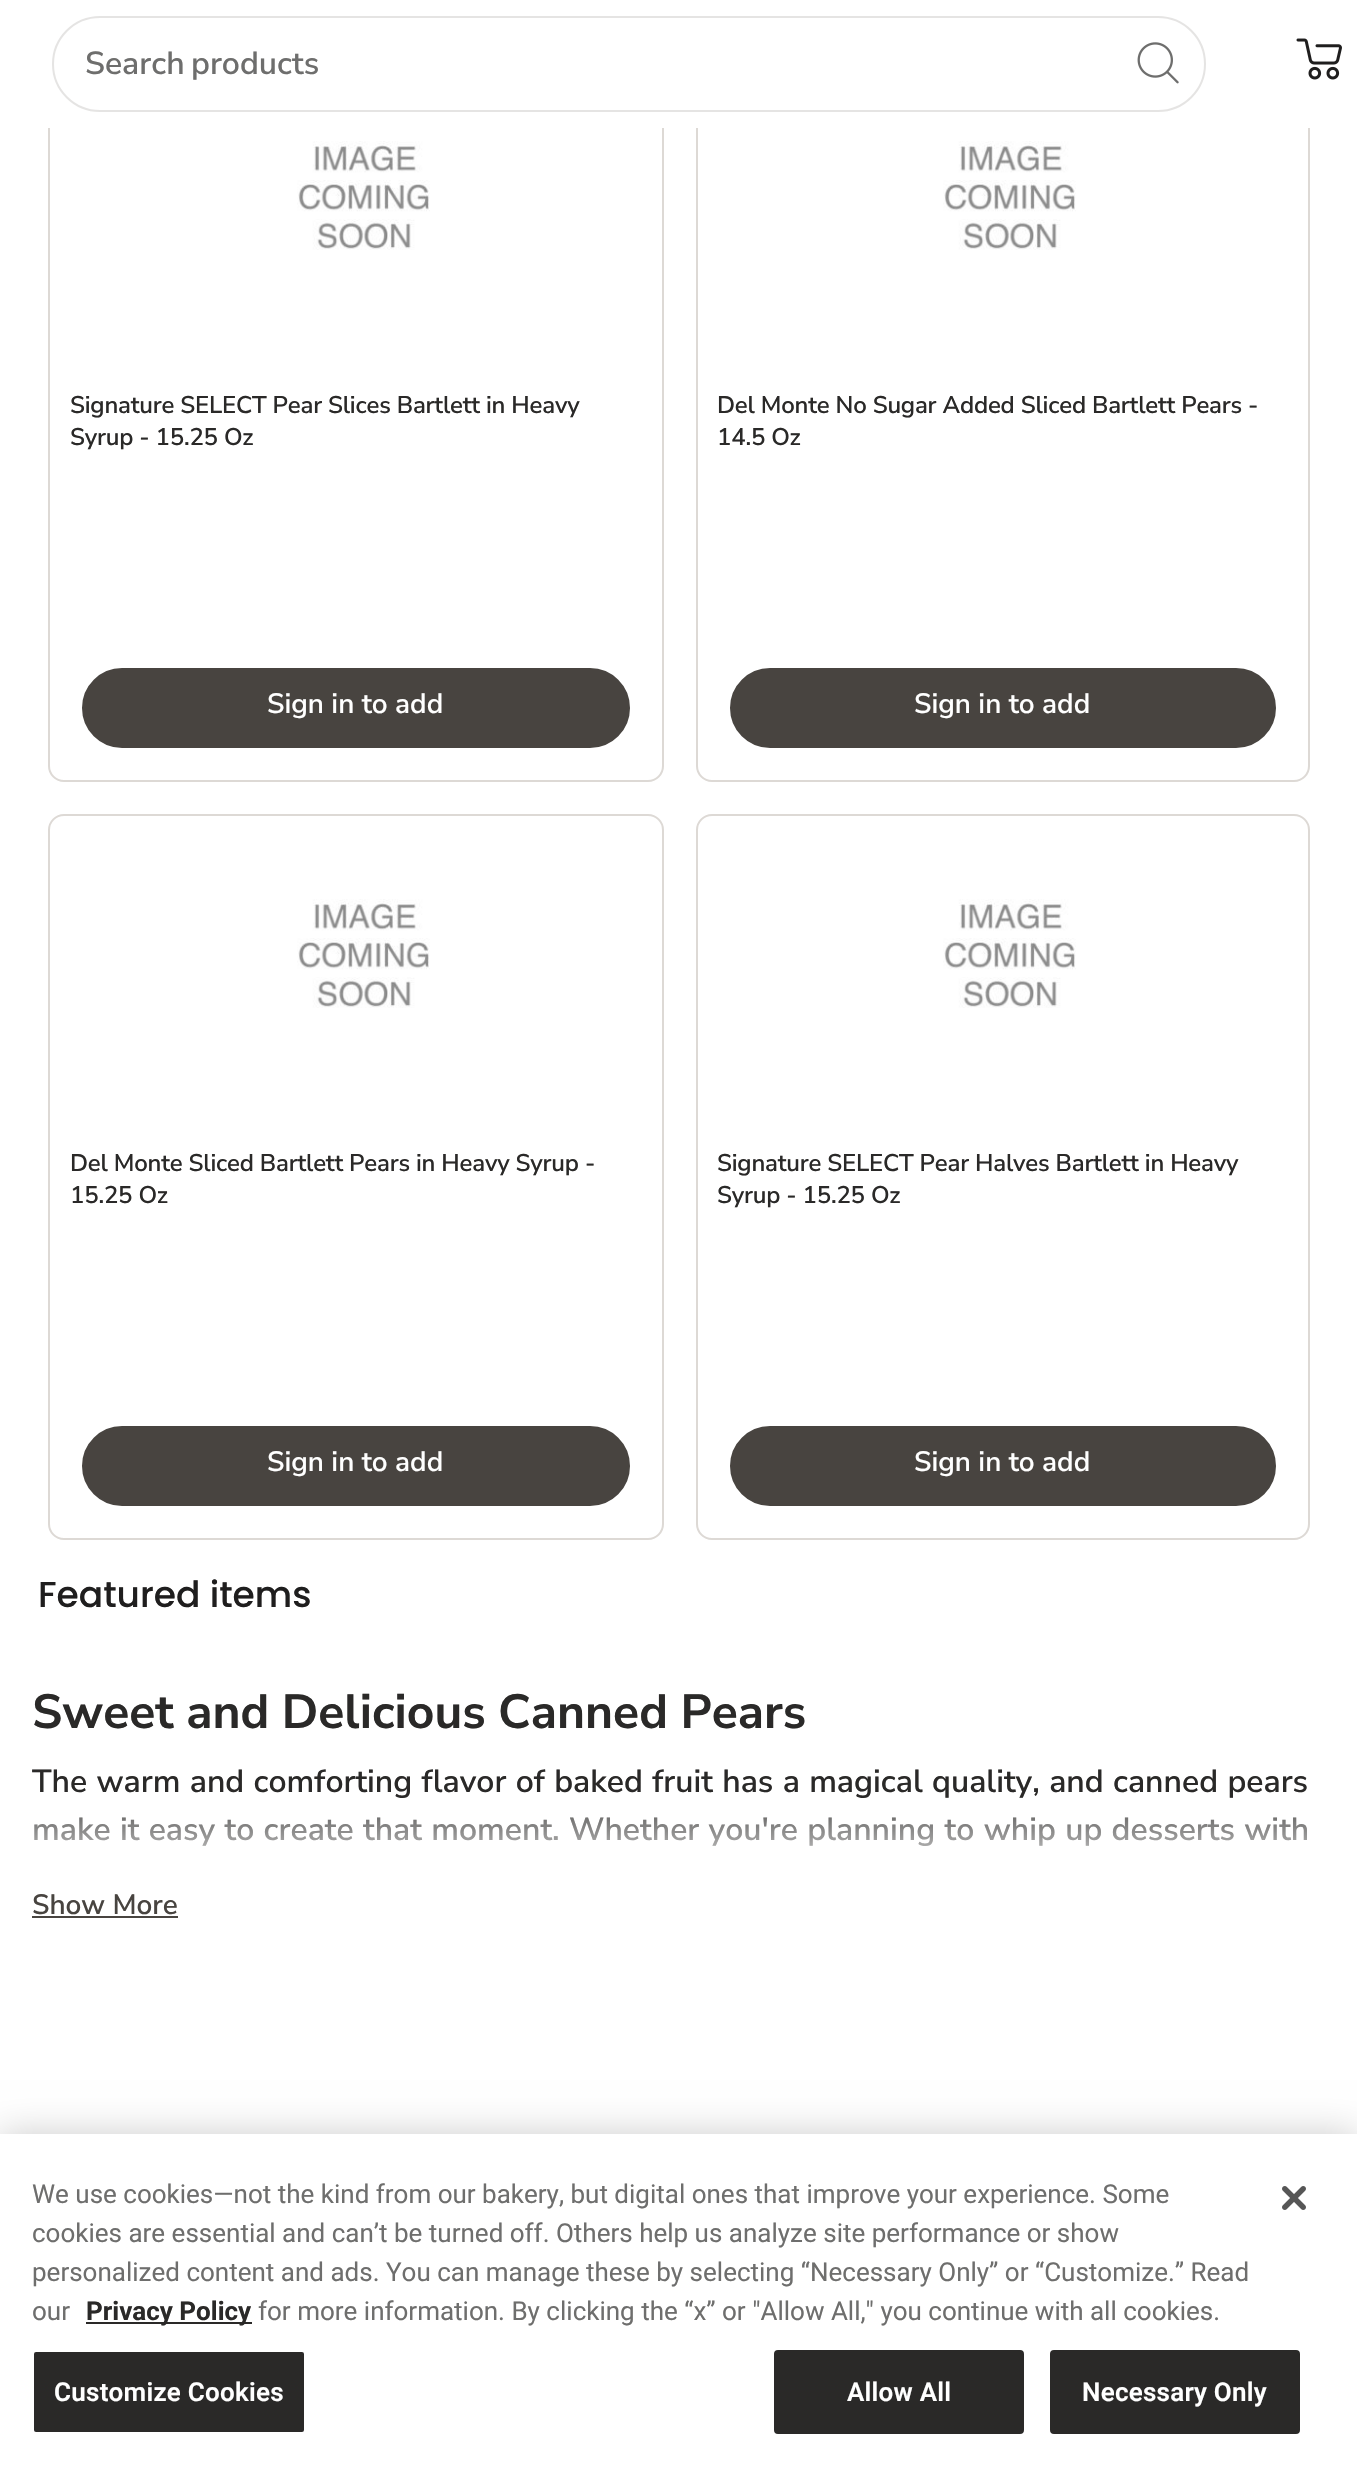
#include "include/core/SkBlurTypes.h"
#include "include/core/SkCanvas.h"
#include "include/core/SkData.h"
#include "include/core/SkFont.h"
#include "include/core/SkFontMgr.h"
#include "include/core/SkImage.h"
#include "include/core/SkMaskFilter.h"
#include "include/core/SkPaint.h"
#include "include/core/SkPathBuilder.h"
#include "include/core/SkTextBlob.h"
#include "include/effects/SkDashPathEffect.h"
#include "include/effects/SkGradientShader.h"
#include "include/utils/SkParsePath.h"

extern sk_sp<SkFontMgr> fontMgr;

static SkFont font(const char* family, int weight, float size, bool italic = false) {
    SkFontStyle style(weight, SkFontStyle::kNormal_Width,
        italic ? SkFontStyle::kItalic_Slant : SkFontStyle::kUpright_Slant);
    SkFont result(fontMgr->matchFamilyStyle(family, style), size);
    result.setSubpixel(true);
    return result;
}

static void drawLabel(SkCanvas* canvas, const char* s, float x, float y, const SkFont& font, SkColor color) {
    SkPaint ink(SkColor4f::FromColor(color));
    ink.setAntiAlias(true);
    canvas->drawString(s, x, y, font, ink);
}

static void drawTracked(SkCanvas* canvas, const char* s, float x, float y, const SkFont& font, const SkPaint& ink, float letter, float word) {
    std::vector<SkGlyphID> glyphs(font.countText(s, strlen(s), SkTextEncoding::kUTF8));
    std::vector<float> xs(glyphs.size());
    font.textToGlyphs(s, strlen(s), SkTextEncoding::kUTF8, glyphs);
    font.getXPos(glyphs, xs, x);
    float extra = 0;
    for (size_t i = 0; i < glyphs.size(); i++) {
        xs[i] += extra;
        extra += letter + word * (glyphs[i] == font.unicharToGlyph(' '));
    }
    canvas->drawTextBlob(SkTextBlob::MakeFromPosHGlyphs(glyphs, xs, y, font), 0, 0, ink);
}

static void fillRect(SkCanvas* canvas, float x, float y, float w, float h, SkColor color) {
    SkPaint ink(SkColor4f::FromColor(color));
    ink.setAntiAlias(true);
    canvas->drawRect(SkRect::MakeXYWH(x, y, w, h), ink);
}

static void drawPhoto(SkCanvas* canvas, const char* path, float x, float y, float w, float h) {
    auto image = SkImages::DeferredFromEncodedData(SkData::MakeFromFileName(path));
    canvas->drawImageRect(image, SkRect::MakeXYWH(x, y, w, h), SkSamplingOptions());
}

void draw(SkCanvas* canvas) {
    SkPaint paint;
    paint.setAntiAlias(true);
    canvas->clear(0xFFFFFFFF);
    paint.setStroke(true);
    paint.setStrokeWidth(2);
    paint.setColor(0xFFDDD9D5);
    canvas->drawRoundRect(SkRect::MakeXYWH(49, 57, 614, 724), 15, 15, paint);
    canvas->drawRoundRect(SkRect::MakeXYWH(697, 57, 612, 724), 15, 15, paint);
    fillRect(canvas, 48, 56, 1262, 72, 0xFFFFFFFF);
    paint.setColor(0xFFE5E4E3);
    canvas->drawRoundRect(SkRect::MakeXYWH(53, 17, 1152, 94), 47, 47, paint);
    SkFont font1 = font("Nunito Sans", 600, 32);
    paint.setStroke(false);
    paint.setColor(0xFF6E6E6D);
    drawTracked(canvas, "Search products", 85, 74, font1, paint, 0, -2);
    drawPhoto(canvas, "assets/img1.png", 1137, 42, 42, 42);
    drawPhoto(canvas, "assets/img2.png", 1296, 38, 46, 42);
    drawPhoto(canvas, "assets/img3.png", 297, 141, 133, 109);
    SkFont font2 = font("Nunito Sans", 600, 24);
    paint.setColor(0xFF2A2928);
    drawTracked(canvas, "Signature SELECT Pear Slices Bartlett in Heavy", 70, 413, font2, paint, -0.2f, 0);
    drawTracked(canvas, "Syrup - 15.25 Oz", 70, 445, font2, paint, -0.2f, 0);
    paint.setColor(0xFF484440);
    canvas->drawRoundRect(SkRect::MakeXYWH(83, 669, 546, 78), 39, 39, paint);
    paint.setStroke(true);
    canvas->drawRoundRect(SkRect::MakeXYWH(83, 669, 546, 78), 39, 39, paint);
    SkFont font3 = font("Nunito Sans", 600, 28);
    drawLabel(canvas, "Sign in to add", 267, 713, font3, 0xFFFFFFFF);
    drawPhoto(canvas, "assets/img4.png", 943, 141, 133, 109);
    paint.setStroke(false);
    paint.setColor(0xFF2A2928);
    drawTracked(canvas, "Del Monte No Sugar Added Sliced Bartlett Pears -", 717, 413, font2, paint, -0.2f, 0);
    drawTracked(canvas, "14.5 Oz", 717, 445, font2, paint, -0.2f, 0);
    paint.setColor(0xFF484440);
    canvas->drawRoundRect(SkRect::MakeXYWH(731, 669, 544, 78), 39, 39, paint);
    paint.setStroke(true);
    canvas->drawRoundRect(SkRect::MakeXYWH(731, 669, 544, 78), 39, 39, paint);
    drawLabel(canvas, "Sign in to add", 914, 713, font3, 0xFFFFFFFF);
    paint.setColor(0xFFDDD9D5);
    canvas->drawRoundRect(SkRect::MakeXYWH(49, 815, 614, 724), 15, 15, paint);
    drawPhoto(canvas, "assets/img5.png", 297, 899, 133, 109);
    paint.setStroke(false);
    paint.setColor(0xFF2A2928);
    drawTracked(canvas, "Del Monte Sliced Bartlett Pears in Heavy Syrup -", 70, 1171, font2, paint, -0.2f, 0);
    drawTracked(canvas, "15.25 Oz", 70, 1203, font2, paint, -0.2f, 0);
    paint.setColor(0xFF484440);
    canvas->drawRoundRect(SkRect::MakeXYWH(83, 1427, 546, 78), 39, 39, paint);
    paint.setStroke(true);
    canvas->drawRoundRect(SkRect::MakeXYWH(83, 1427, 546, 78), 39, 39, paint);
    drawLabel(canvas, "Sign in to add", 267, 1471, font3, 0xFFFFFFFF);
    paint.setColor(0xFFDDD9D5);
    canvas->drawRoundRect(SkRect::MakeXYWH(697, 815, 612, 724), 15, 15, paint);
    drawPhoto(canvas, "assets/img6.png", 943, 899, 133, 109);
    paint.setStroke(false);
    paint.setColor(0xFF2A2928);
    drawTracked(canvas, "Signature SELECT Pear Halves Bartlett in Heavy", 717, 1171, font2, paint, -0.2f, 0);
    drawTracked(canvas, "Syrup - 15.25 Oz", 717, 1203, font2, paint, -0.2f, 0);
    paint.setColor(0xFF484440);
    canvas->drawRoundRect(SkRect::MakeXYWH(731, 1427, 544, 78), 39, 39, paint);
    paint.setStroke(true);
    canvas->drawRoundRect(SkRect::MakeXYWH(731, 1427, 544, 78), 39, 39, paint);
    drawLabel(canvas, "Sign in to add", 914, 1471, font3, 0xFFFFFFFF);
    SkFont font4 = font("Poppins", 500, 36);
    drawLabel(canvas, "Featured items", 38, 1607, font4, 0xFF1F1E1E);
    SkFont font5 = font("Nunito Sans", 700, 48);
    paint.setStroke(false);
    paint.setColor(0xFF2A2928);
    drawTracked(canvas, "Sweet and Delicious Canned Pears", 32, 1728, font5, paint, 0, -0.5f);
    drawTracked(canvas, "The warm and comforting flavor of baked fruit has a magical quality, and canned pears", 32, 1792, font1, paint, 0, 0.9f);
    drawTracked(canvas, "make it easy to create that moment. Whether you're planning to whip up desserts with", 32, 1840, font1, paint, 0, 0.9f);
    {
        const SkColor colors[] = {0x2EFFFFFF, 0xE6FFFFFF};
        const float stops[] = {0, 1};
        const SkPoint ends[] = {{679, 1800}, {679, 1880}};
        paint.setShader(SkGradientShader::MakeLinear(ends, colors, stops, 2, SkTileMode::kClamp));
        paint.setAlpha(255);
    }
    canvas->drawRect(SkRect::MakeXYWH(34, 1817, 1274, 30), paint);
    drawLabel(canvas, "Show More", 32, 1914, font3, 0xFF484440);
    fillRect(canvas, 32, 1916, 146, 2, 0xFF484440);
    paint.setShader(nullptr);
    paint.setColor(0x33000000);
    paint.setMaskFilter(SkMaskFilter::MakeBlur(kNormal_SkBlurStyle, 18));
    canvas->drawRect(SkRect::MakeXYWH(0, 2134, 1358, 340), paint);
    paint.setMaskFilter(nullptr);
    fillRect(canvas, 0, 2134, 1357, 339, 0xFFFFFFFF);
    SkFont font6 = font("Roboto", 400, 26);
    drawLabel(canvas, "We use cookies—not the kind from our bakery, but digital ones that improve your experience. Some", 32, 2203, font6, 0xFF6E6E6D);
    drawLabel(canvas, "cookies are essential and can’t be turned off. Others help us analyze site performance or show", 32, 2242, font6, 0xFF6E6E6D);
    drawLabel(canvas, "personalized content and ads. You can manage these by selecting “Necessary Only” or “Customize.” Read", 32, 2281, font6, 0xFF6E6E6D);
    drawLabel(canvas, "our", 32, 2320, font6, 0xFF6E6E6D);
    fillRect(canvas, 86, 2322, 166, 2, 0xFF2A2928);
    SkFont font7 = font("Roboto", 700, 26);
    drawLabel(canvas, "Privacy Policy", 86, 2320, font7, 0xFF2A2928);
    drawLabel(canvas, "for more information. By clicking the “x” or \"Allow All,\" you continue with all cookies.", 258, 2320, font6, 0xFF6E6E6D);
    paint.setColor(0xFF2A2928);
    canvas->drawRoundRect(SkRect::MakeXYWH(33, 2351, 272, 82), 3, 3, paint);
    paint.setStroke(true);
    paint.setColor(0xFFFFFFFF);
    canvas->drawRoundRect(SkRect::MakeXYWH(33, 2351, 272, 82), 3, 3, paint);
    SkFont font8 = font("Roboto", 600, 26);
    paint.setStroke(false);
    drawTracked(canvas, "Customize Cookies", 54, 2401, font8, paint, 0.25f, 0);
    paint.setColor(0xFF2A2928);
    canvas->drawRoundRect(SkRect::MakeXYWH(775, 2351, 248, 82), 3, 3, paint);
    paint.setStroke(true);
    canvas->drawRoundRect(SkRect::MakeXYWH(775, 2351, 248, 82), 3, 3, paint);
    paint.setStroke(false);
    paint.setColor(0xFFFFFFFF);
    drawTracked(canvas, "Allow All", 847, 2401, font8, paint, 0.25f, 0);
    paint.setColor(0xFF2A2928);
    canvas->drawRoundRect(SkRect::MakeXYWH(1051, 2351, 248, 82), 3, 3, paint);
    paint.setStroke(true);
    canvas->drawRoundRect(SkRect::MakeXYWH(1051, 2351, 248, 82), 3, 3, paint);
    paint.setStroke(false);
    paint.setColor(0xFFFFFFFF);
    drawTracked(canvas, "Necessary Only", 1082, 2401, font8, paint, 0.25f, 0);
    drawPhoto(canvas, "assets/img7.png", 1282, 2186, 24, 24);
}
